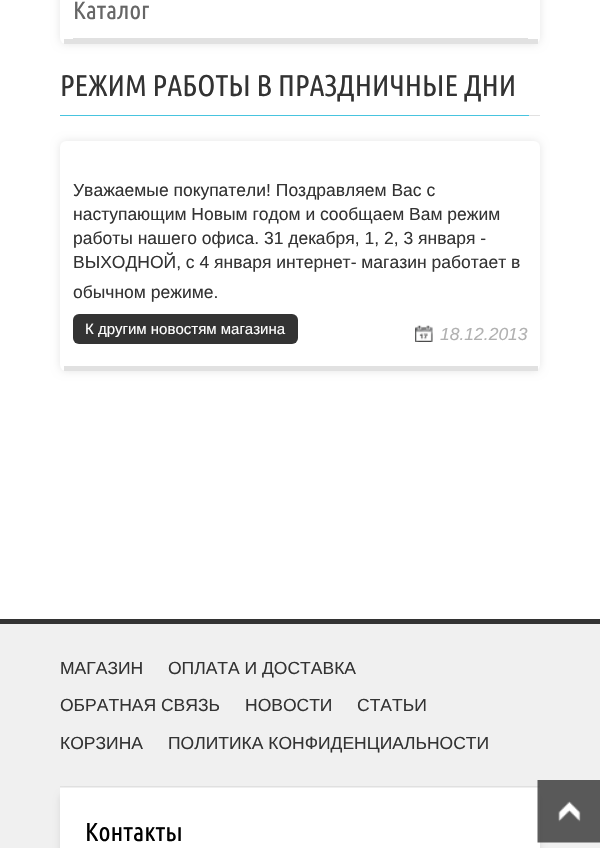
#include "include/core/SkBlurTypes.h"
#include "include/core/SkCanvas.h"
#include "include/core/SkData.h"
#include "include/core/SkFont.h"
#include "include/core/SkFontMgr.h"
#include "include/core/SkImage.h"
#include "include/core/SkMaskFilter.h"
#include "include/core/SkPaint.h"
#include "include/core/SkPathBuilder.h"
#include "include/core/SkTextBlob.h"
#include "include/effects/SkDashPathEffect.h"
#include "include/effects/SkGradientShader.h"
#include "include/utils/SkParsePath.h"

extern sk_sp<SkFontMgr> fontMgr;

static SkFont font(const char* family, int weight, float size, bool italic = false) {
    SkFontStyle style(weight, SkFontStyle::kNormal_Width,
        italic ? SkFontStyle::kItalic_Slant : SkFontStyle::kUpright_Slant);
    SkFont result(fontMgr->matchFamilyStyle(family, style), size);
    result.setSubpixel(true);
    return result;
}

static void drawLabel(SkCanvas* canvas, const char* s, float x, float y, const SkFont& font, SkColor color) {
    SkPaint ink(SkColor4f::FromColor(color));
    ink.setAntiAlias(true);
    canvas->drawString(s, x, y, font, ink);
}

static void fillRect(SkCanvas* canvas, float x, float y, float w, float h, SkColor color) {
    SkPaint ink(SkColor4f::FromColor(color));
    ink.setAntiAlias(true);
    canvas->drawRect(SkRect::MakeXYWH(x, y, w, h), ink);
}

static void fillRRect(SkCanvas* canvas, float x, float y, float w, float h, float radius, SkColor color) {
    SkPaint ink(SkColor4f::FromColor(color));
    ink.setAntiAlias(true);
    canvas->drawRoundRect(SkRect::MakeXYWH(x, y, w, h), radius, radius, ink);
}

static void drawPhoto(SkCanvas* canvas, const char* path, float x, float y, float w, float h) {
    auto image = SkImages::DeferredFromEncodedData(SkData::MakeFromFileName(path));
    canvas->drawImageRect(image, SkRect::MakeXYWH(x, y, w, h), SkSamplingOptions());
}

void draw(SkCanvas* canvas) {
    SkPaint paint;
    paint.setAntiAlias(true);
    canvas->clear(0xFFFFFFFF);
    paint.setColor(0x1A000000);
    paint.setMaskFilter(SkMaskFilter::MakeBlur(kNormal_SkBlurStyle, 4));
    canvas->drawRoundRect(SkRect::MakeXYWH(60, -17, 480, 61), 6, 6, paint);
    paint.setMaskFilter(nullptr);
    fillRRect(canvas, 60, -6, 480, 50, 6, 0xFFFFFFFF);
    fillRect(canvas, 64, 39, 474, 5, 0xFFE1E1E1);
    fillRect(canvas, 73, 38, 455, 1, 0xFFE1E1E1);
    SkFont font1 = font("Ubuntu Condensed", 400, 25);
    drawLabel(canvas, "Каталог", 73, 19, font1, 0xFF666666);
    fillRect(canvas, 529, 115, 11, 1, 0xFFE1E1E1);
    fillRect(canvas, 60, 115, 469, 1, 0xFF47C4DF);
    SkFont font2 = font("Ubuntu Condensed", 400, 30);
    drawLabel(canvas, "РЕЖИМ РАБОТЫ В ПРАЗДНИЧНЫЕ ДНИ", 60, 96, font2, 0xFF333333);
    paint.setMaskFilter(SkMaskFilter::MakeBlur(kNormal_SkBlurStyle, 4));
    canvas->drawRoundRect(SkRect::MakeXYWH(60, 141, 480, 230), 6, 6, paint);
    paint.setMaskFilter(nullptr);
    fillRRect(canvas, 60, 141, 480, 230, 6, 0xFFFFFFFF);
    fillRect(canvas, 64, 366, 474, 5, 0xFFE1E1E1);
    SkFont font3 = font("Liberation Sans", 400, 17.5f);
    drawLabel(canvas, "Уважаемые покупатели! Поздравляем Вас с", 73, 196, font3, 0xFF333333);
    drawLabel(canvas, "наступающим Новым годом и сообщаем Вам режим", 73, 220, font3, 0xFF333333);
    drawLabel(canvas, "работы нашего офиса. 31 декабря, 1, 2, 3 января -", 73, 244, font3, 0xFF333333);
    drawLabel(canvas, "ВЫХОДНОЙ, с 4 января интернет- магазин работает в", 73, 268, font3, 0xFF333333);
    drawLabel(canvas, "обычном режиме.", 73, 298, font3, 0xFF333333);
    fillRRect(canvas, 73, 314, 225, 30, 6, 0xFF333333);
    SkFont font4 = font("Liberation Sans", 400, 15);
    drawLabel(canvas, "К другим новостям магазина", 85, 334, font4, 0xFFFFFFFF);
    drawPhoto(canvas, "assets/img1.png", 415, 325, 18, 17);
    SkFont font5 = font("Liberation Sans", 400, 17.5f, true);
    drawLabel(canvas, "18.12.2013", 440, 340, font5, 0xFFB1B1B1);
    fillRect(canvas, 0, 624, 600, 224, 0xFFF0F0F0);
    fillRect(canvas, 0, 619, 600, 5, 0xFF333333);
    fillRect(canvas, 60, 786, 480, 1, 0xFFE1E1E1);
    drawLabel(canvas, "МАГАЗИН", 60, 674, font3, 0xFF333333);
    drawLabel(canvas, "ОПЛАТА И ДОСТАВКА", 168, 674, font3, 0xFF333333);
    drawLabel(canvas, "ОБРАТНАЯ СВЯЗЬ", 60, 711, font3, 0xFF333333);
    drawLabel(canvas, "НОВОСТИ", 245, 711, font3, 0xFF333333);
    drawLabel(canvas, "СТАТЬИ", 357, 711, font3, 0xFF333333);
    drawLabel(canvas, "КОРЗИНА", 60, 749, font3, 0xFF333333);
    drawLabel(canvas, "ПОЛИТИКА КОНФИДЕНЦИАЛЬНОСТИ", 168, 749, font3, 0xFF333333);
    paint.setMaskFilter(SkMaskFilter::MakeBlur(kNormal_SkBlurStyle, 3));
    canvas->drawRoundRect(SkRect::MakeXYWH(60, 794, 480, 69), 6, 6, paint);
    paint.setMaskFilter(nullptr);
    fillRect(canvas, 60, 788, 480, 60, 0xFFFFFFFF);
    SkFont font6 = font("Ubuntu Condensed", 400, 26);
    drawLabel(canvas, "Контакты", 85, 841, font6, 0xFF000000);
    drawPhoto(canvas, "assets/img2.png", 537, 780, 63, 63);
}
